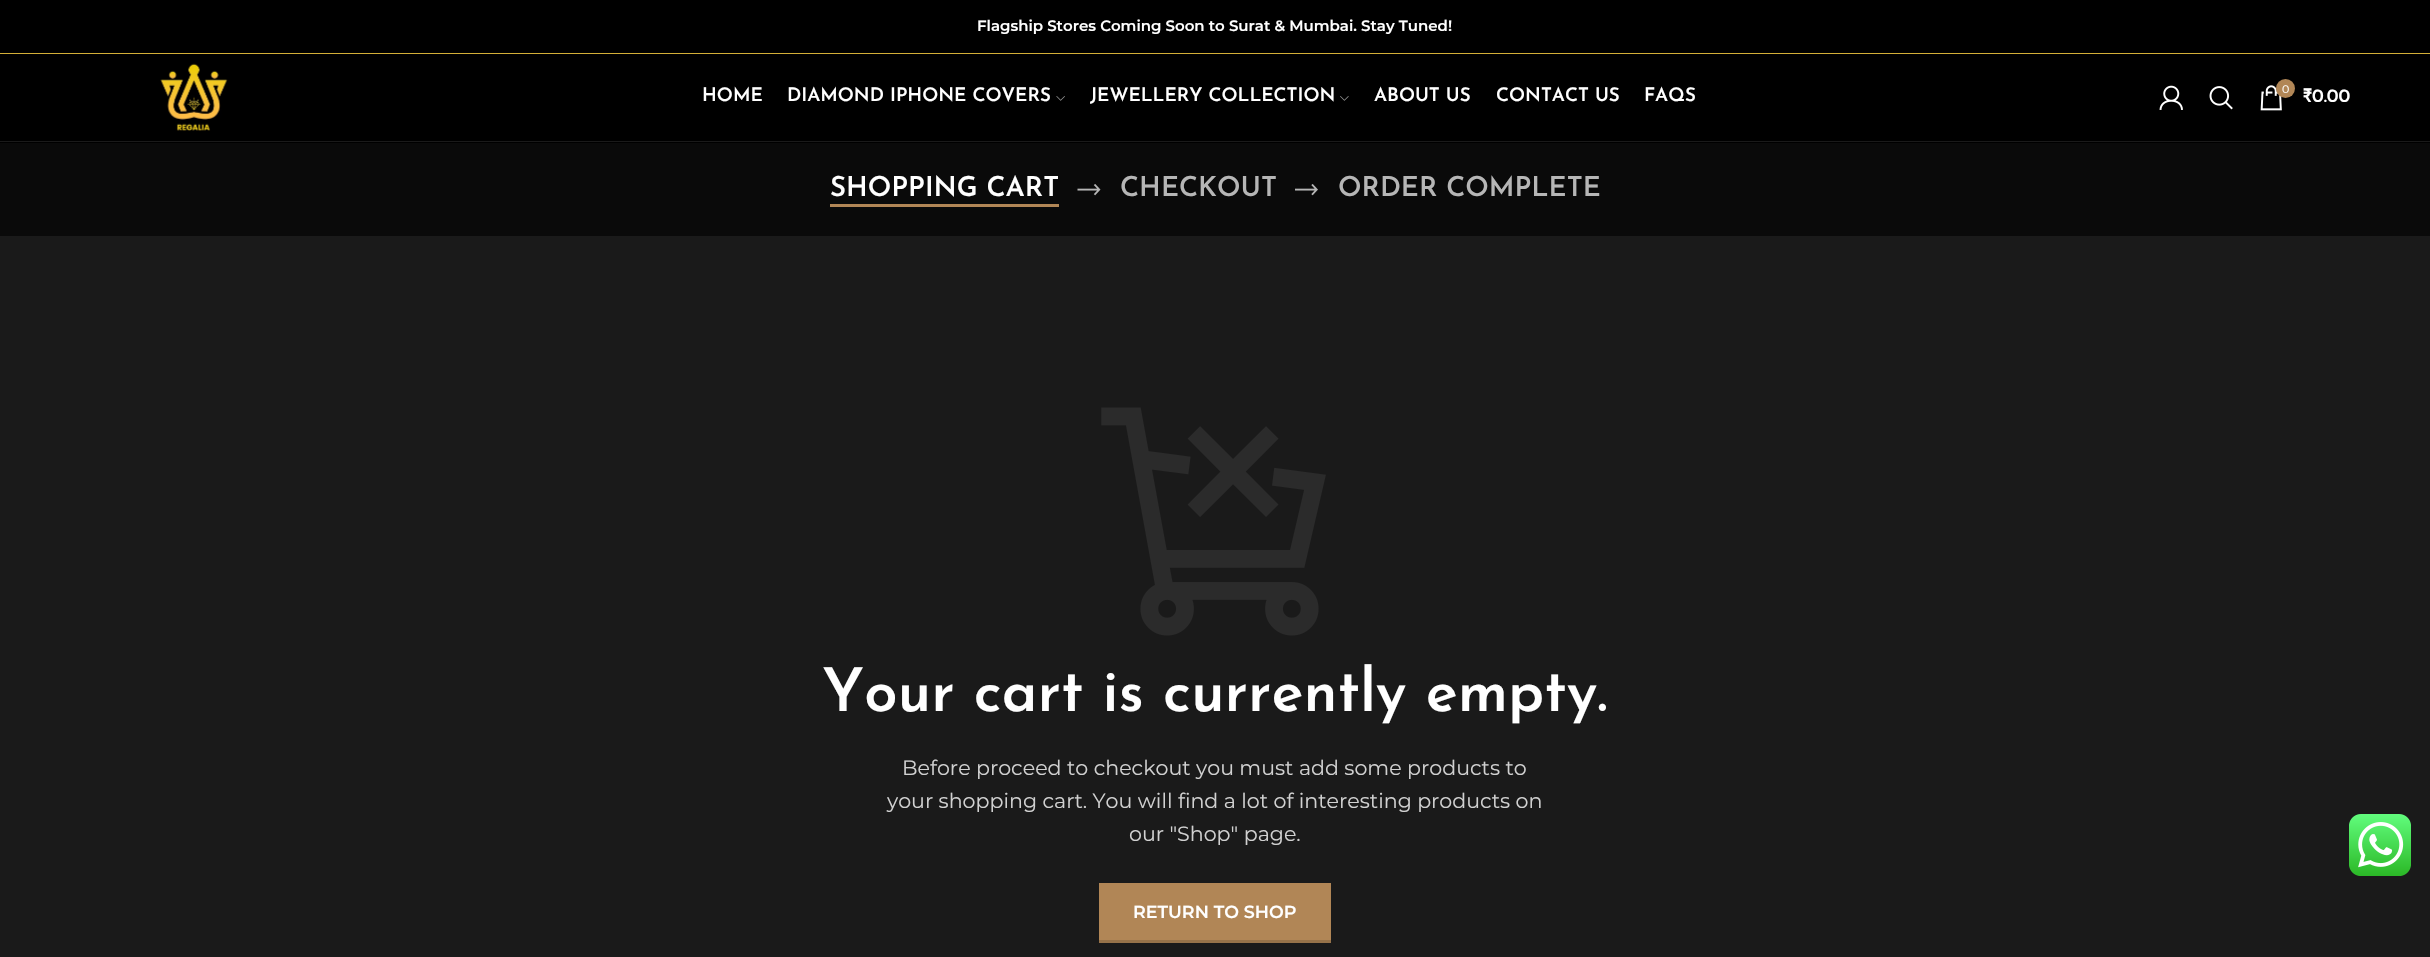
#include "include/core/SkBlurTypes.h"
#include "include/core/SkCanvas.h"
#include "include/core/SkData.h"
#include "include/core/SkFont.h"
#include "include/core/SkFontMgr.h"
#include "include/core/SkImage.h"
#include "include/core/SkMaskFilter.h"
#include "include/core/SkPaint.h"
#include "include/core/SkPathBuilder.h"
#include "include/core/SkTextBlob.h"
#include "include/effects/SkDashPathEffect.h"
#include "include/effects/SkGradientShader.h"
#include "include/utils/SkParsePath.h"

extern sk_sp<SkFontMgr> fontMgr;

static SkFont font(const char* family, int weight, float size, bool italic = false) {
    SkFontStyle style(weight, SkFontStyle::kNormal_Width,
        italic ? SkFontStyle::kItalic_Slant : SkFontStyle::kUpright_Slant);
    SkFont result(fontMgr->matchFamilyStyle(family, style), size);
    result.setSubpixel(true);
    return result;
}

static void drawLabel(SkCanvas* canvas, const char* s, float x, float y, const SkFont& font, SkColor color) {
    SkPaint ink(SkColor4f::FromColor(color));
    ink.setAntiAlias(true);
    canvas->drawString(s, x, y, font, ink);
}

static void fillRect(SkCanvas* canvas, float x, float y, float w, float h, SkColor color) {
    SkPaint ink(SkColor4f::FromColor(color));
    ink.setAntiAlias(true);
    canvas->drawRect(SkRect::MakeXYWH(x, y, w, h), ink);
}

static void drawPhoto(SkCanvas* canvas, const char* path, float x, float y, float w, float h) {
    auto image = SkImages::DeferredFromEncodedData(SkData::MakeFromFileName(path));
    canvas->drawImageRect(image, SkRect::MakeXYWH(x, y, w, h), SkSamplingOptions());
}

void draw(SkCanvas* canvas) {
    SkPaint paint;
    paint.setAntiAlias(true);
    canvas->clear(0xFF1A1A1A);
    fillRect(canvas, 0, 0, 2430, 53, 0xFF000000);
    fillRect(canvas, 0, 53, 2430, 1, 0xFFD4AF37);
    SkFont font1 = font("Montserrat", 600, 15);
    drawLabel(canvas, "Flagship Stores Coming Soon to Surat & Mumbai. Stay Tuned!", 977, 31, font1, 0xFFFFFFFF);
    fillRect(canvas, 0, 54, 2430, 89, 0xFF000000);
    fillRect(canvas, 0, 141, 2430, 1, 0xFF1A1A1A);
    drawPhoto(canvas, "assets/img1.png", 160, 63, 68, 68);
    SkFont font2 = font("Josefin Sans", 600, 18.75f);
    drawLabel(canvas, "HOME", 702, 101, font2, 0xFFFFFFFF);
    drawLabel(canvas, "DIAMOND IPHONE COVERS", 787, 101, font2, 0xFFFFFFFF);
    drawPhoto(canvas, "assets/img2.png", 1056, 96, 9, 5);
    drawLabel(canvas, "JEWELLERY COLLECTION", 1090, 101, font2, 0xFFFFFFFF);
    drawPhoto(canvas, "assets/img3.png", 1340, 96, 9, 5);
    drawLabel(canvas, "ABOUT US", 1374, 101, font2, 0xFFFFFFFF);
    drawLabel(canvas, "CONTACT US", 1496, 101, font2, 0xFFFFFFFF);
    drawLabel(canvas, "FAQS", 1644, 101, font2, 0xFFFFFFFF);
    drawPhoto(canvas, "assets/img4.png", 2159, 85, 24, 25);
    drawPhoto(canvas, "assets/img5.png", 2209, 86, 24, 24);
    drawPhoto(canvas, "assets/img6.png", 2260, 85, 22, 26);
    paint.setColor(0xFFB18656);
    canvas->drawCircle(2285.5f, 88.5f, 9.5f, paint);
    SkFont font3 = font("Montserrat", 400, 11);
    drawLabel(canvas, "0", 2282, 93, font3, 0xFFFFFFFF);
    drawLabel(canvas, "₹0.00", 2302, 102, font2, 0xFFFFFFFF);
    fillRect(canvas, 0, 143, 2430, 93, 0xFF0A0A0A);
    SkFont font4 = font("Josefin Sans", 600, 27.5f);
    drawLabel(canvas, "SHOPPING CART", 830, 196, font4, 0xFFFFFFFF);
    fillRect(canvas, 830, 204, 229, 3, 0xFFB18656);
    drawPhoto(canvas, "assets/img7.png", 1077, 184, 24, 12);
    drawLabel(canvas, "CHECKOUT", 1120, 196, font4, 0xFFB6B6B6);
    drawPhoto(canvas, "assets/img8.png", 1295, 184, 23, 12);
    drawLabel(canvas, "ORDER COMPLETE", 1338, 196, font4, 0xFFB6B6B6);
    drawPhoto(canvas, "assets/img9.png", 1101, 407, 225, 229);
    SkFont font5 = font("Josefin Sans", 600, 60);
    drawLabel(canvas, "Your cart is currently empty.", 822, 711, font5, 0xFFFFFFFF);
    SkFont font6 = font("Montserrat", 400, 20.6f);
    drawLabel(canvas, "Before proceed to checkout you must add some products to", 902, 775, font6, 0xFFD1D1D1);
    drawLabel(canvas, "your shopping cart. You will find a lot of interesting products on", 887, 808, font6, 0xFFD1D1D1);
    drawLabel(canvas, "our \"Shop\" page.", 1129, 841, font6, 0xFFD1D1D1);
    fillRect(canvas, 1099, 883, 232, 57, 0xFFB18656);
    fillRect(canvas, 1099, 940, 232, 3, 0xFF967249);
    SkFont font7 = font("Montserrat", 600, 17.5f);
    drawLabel(canvas, "RETURN TO SHOP", 1133, 918, font7, 0xFFFFFFFF);
    drawPhoto(canvas, "assets/img10.png", 2349, 814, 62, 62);
}
